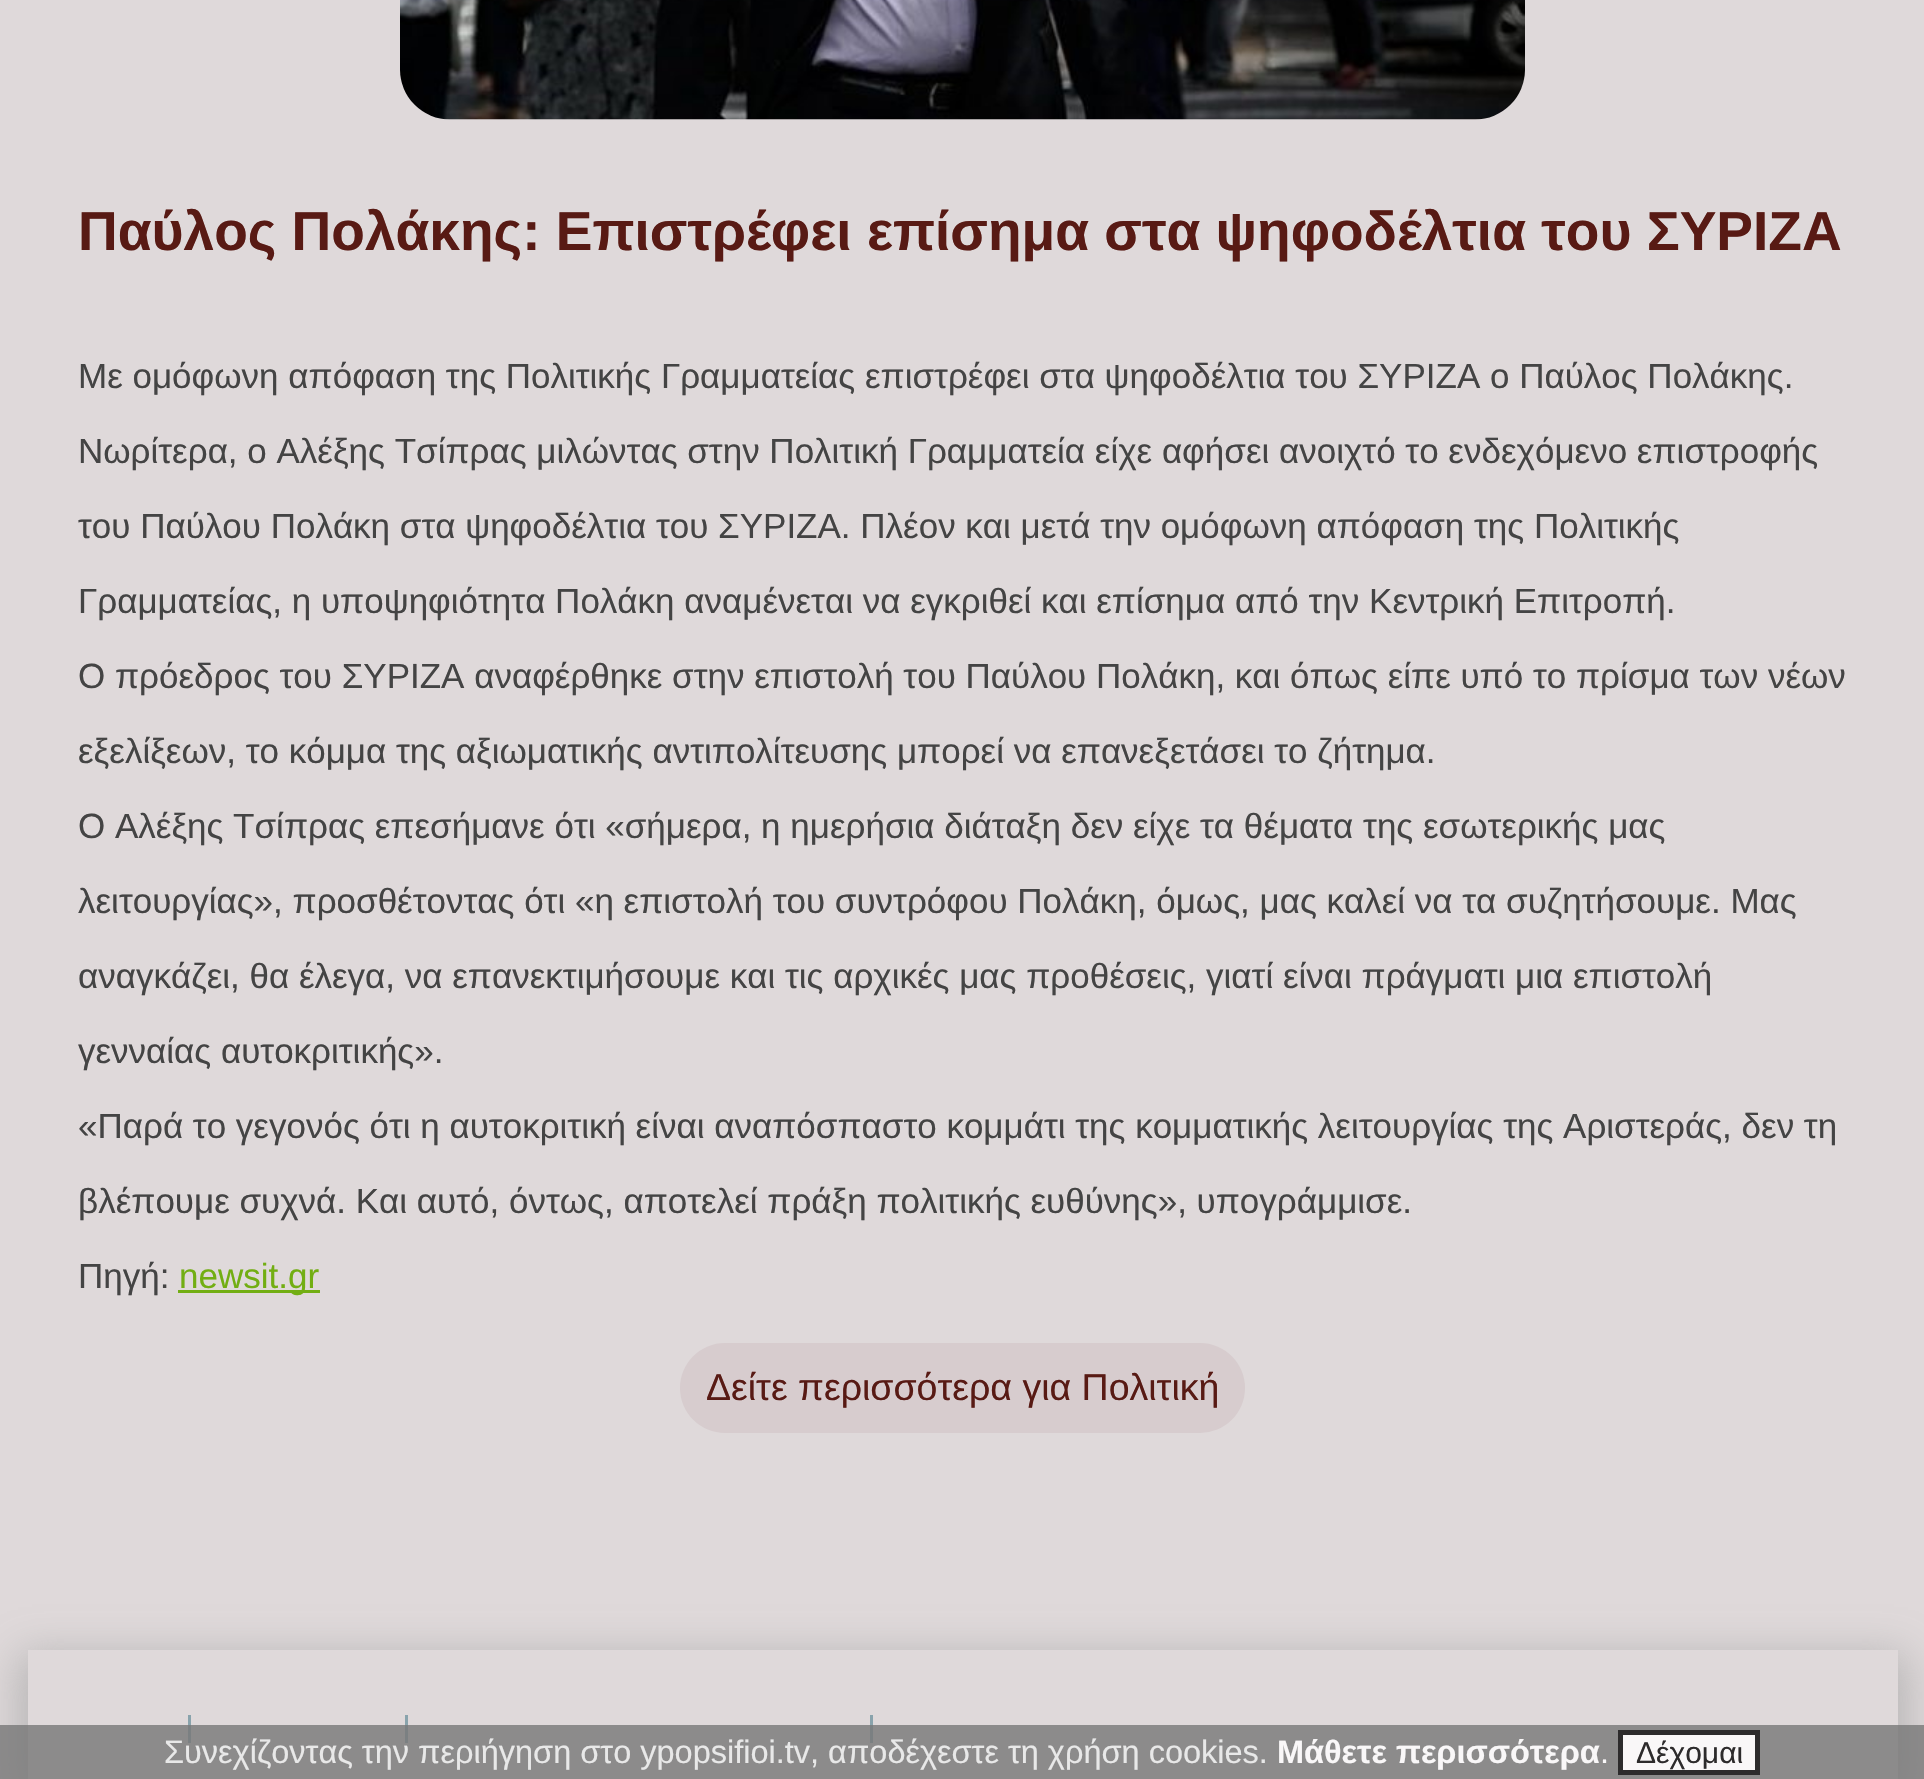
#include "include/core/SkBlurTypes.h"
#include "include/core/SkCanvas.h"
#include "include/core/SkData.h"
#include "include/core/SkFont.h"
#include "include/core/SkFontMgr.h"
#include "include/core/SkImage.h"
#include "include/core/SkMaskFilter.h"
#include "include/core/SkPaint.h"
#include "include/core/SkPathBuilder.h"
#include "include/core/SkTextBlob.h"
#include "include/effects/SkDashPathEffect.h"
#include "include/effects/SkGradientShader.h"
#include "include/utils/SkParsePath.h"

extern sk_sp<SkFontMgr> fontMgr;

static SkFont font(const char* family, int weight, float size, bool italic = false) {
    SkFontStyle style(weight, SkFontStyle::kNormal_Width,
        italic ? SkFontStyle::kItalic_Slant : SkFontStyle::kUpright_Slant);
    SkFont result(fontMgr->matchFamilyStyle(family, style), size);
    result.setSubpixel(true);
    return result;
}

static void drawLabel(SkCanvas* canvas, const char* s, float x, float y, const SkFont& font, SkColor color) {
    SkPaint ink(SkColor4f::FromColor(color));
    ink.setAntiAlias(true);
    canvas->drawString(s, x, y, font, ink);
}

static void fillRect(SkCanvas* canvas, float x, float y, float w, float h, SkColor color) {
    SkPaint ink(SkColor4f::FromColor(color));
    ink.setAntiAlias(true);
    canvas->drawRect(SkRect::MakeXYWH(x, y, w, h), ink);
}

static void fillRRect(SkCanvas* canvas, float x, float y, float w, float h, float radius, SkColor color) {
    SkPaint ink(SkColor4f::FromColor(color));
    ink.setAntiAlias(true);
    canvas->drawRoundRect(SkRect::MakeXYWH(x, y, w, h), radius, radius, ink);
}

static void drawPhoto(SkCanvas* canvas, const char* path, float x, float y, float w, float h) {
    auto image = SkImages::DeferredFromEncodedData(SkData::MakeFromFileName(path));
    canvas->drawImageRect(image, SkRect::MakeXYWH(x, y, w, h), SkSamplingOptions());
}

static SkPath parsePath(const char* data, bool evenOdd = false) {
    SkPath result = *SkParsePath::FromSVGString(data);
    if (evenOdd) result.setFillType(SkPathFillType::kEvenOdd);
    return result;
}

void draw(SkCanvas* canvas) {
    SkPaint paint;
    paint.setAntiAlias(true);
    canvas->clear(0xFFDFD9DA);
    drawPhoto(canvas, "assets/img1.png", 400, 0, 1125, 120);
    SkFont font1 = font("Liberation Sans", 700, 55);
    drawLabel(canvas, "Παύλος Πολάκης: Επιστρέφει επίσημα στα ψηφοδέλτια του ΣΥΡΙΖΑ", 78, 250, font1, 0xFF581A14);
    SkFont font2 = font("Liberation Sans", 400, 35);
    drawLabel(canvas, "Με ομόφωνη απόφαση της Πολιτικής Γραμματείας επιστρέφει στα ψηφοδέλτια του ΣΥΡΙΖΑ ο Παύλος Πολάκης.", 78, 388, font2, 0xFF444444);
    drawLabel(canvas, "Νωρίτερα, ο Αλέξης Τσίπρας μιλώντας στην Πολιτική Γραμματεία είχε αφήσει ανοιχτό το ενδεχόμενο επιστροφής", 78, 463, font2, 0xFF444444);
    drawLabel(canvas, "του Παύλου Πολάκη στα ψηφοδέλτια του ΣΥΡΙΖΑ. Πλέον και μετά την ομόφωνη απόφαση της Πολιτικής", 78, 538, font2, 0xFF444444);
    drawLabel(canvas, "Γραμματείας, η υποψηφιότητα Πολάκη αναμένεται να εγκριθεί και επίσημα από την Κεντρική Επιτροπή.", 78, 613, font2, 0xFF444444);
    drawLabel(canvas, "Ο πρόεδρος του ΣΥΡΙΖΑ αναφέρθηκε στην επιστολή του Παύλου Πολάκη, και όπως είπε υπό το πρίσμα των νέων", 78, 688, font2, 0xFF444444);
    drawLabel(canvas, "εξελίξεων, το κόμμα της αξιωματικής αντιπολίτευσης μπορεί να επανεξετάσει το ζήτημα.", 78, 763, font2, 0xFF444444);
    drawLabel(canvas, "Ο Αλέξης Τσίπρας επεσήμανε ότι «σήμερα, η ημερήσια διάταξη δεν είχε τα θέματα της εσωτερικής μας", 78, 838, font2, 0xFF444444);
    drawLabel(canvas, "λειτουργίας», προσθέτοντας ότι «η επιστολή του συντρόφου Πολάκη, όμως, μας καλεί να τα συζητήσουμε. Μας", 78, 913, font2, 0xFF444444);
    drawLabel(canvas, "αναγκάζει, θα έλεγα, να επανεκτιμήσουμε και τις αρχικές μας προθέσεις, γιατί είναι πράγματι μια επιστολή", 78, 988, font2, 0xFF444444);
    drawLabel(canvas, "γενναίας αυτοκριτικής».", 78, 1063, font2, 0xFF444444);
    drawLabel(canvas, "«Παρά το γεγονός ότι η αυτοκριτική είναι αναπόσπαστο κομμάτι της κομματικής λειτουργίας της Αριστεράς, δεν τη", 78, 1138, font2, 0xFF444444);
    drawLabel(canvas, "βλέπουμε συχνά. Και αυτό, όντως, αποτελεί πράξη πολιτικής ευθύνης», υπογράμμισε.", 78, 1213, font2, 0xFF444444);
    drawLabel(canvas, "Πηγή:", 78, 1288, font2, 0xFF444444);
    fillRect(canvas, 178, 1290, 142, 3, 0xFF72AE13);
    drawLabel(canvas, "newsit.gr", 179, 1288, font2, 0xFF72AE13);
    fillRRect(canvas, 680, 1343, 565, 90, 45, 0xFFD7CCCE);
    SkFont font3 = font("Liberation Sans", 400, 37.5f);
    drawLabel(canvas, "Δείτε περισσότερα για Πολιτική", 706, 1400, font3, 0xFF581A14);
    canvas->save();
    canvas->clipPath(parsePath("M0 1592H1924V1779H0ZM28 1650H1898V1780H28Z", true), true);
    paint.setColor(0xBFA9A9A9);
    paint.setMaskFilter(SkMaskFilter::MakeBlur(kNormal_SkBlurStyle, 20));
    canvas->drawRect(SkRect::MakeXYWH(18, 1653, 1890, 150), paint);
    paint.setMaskFilter(nullptr);
    canvas->restore();
    fillRect(canvas, 188, 1715, 3, 28, 0xFF89A3AC);
    fillRect(canvas, 405, 1715, 3, 28, 0xFF89A3AC);
    fillRect(canvas, 870, 1715, 3, 28, 0xFF89A3AC);
    fillRect(canvas, 0, 1725, 1924, 54, 0xCC777777);
    SkFont font4 = font("Liberation Sans", 400, 32.5f);
    drawLabel(canvas, "Συνεχίζοντας την περιήγηση στο ypopsifioi.tv, αποδέχεστε τη χρήση cookies.", 164, 1763, font4, 0xFFE8E8E8);
    SkFont font5 = font("Liberation Sans", 700, 32.5f);
    drawLabel(canvas, "Μάθετε περισσότερα", 1277, 1763, font5, 0xFFF9F7F8);
    drawLabel(canvas, ".", 1600, 1763, font4, 0xFFF9F7F8);
    paint.setColor(0xFFF9F7F8);
    canvas->drawRect(SkRect::MakeXYWH(1620.5f, 1732.5f, 137, 40), paint);
    paint.setStroke(true);
    paint.setStrokeWidth(5);
    paint.setColor(0xFF2D2B2C);
    canvas->drawRect(SkRect::MakeXYWH(1620.5f, 1732.5f, 137, 40), paint);
    SkFont font6 = font("Liberation Sans", 400, 30);
    drawLabel(canvas, "Δέχομαι", 1636, 1763, font6, 0xFF2D2B2C);
}
